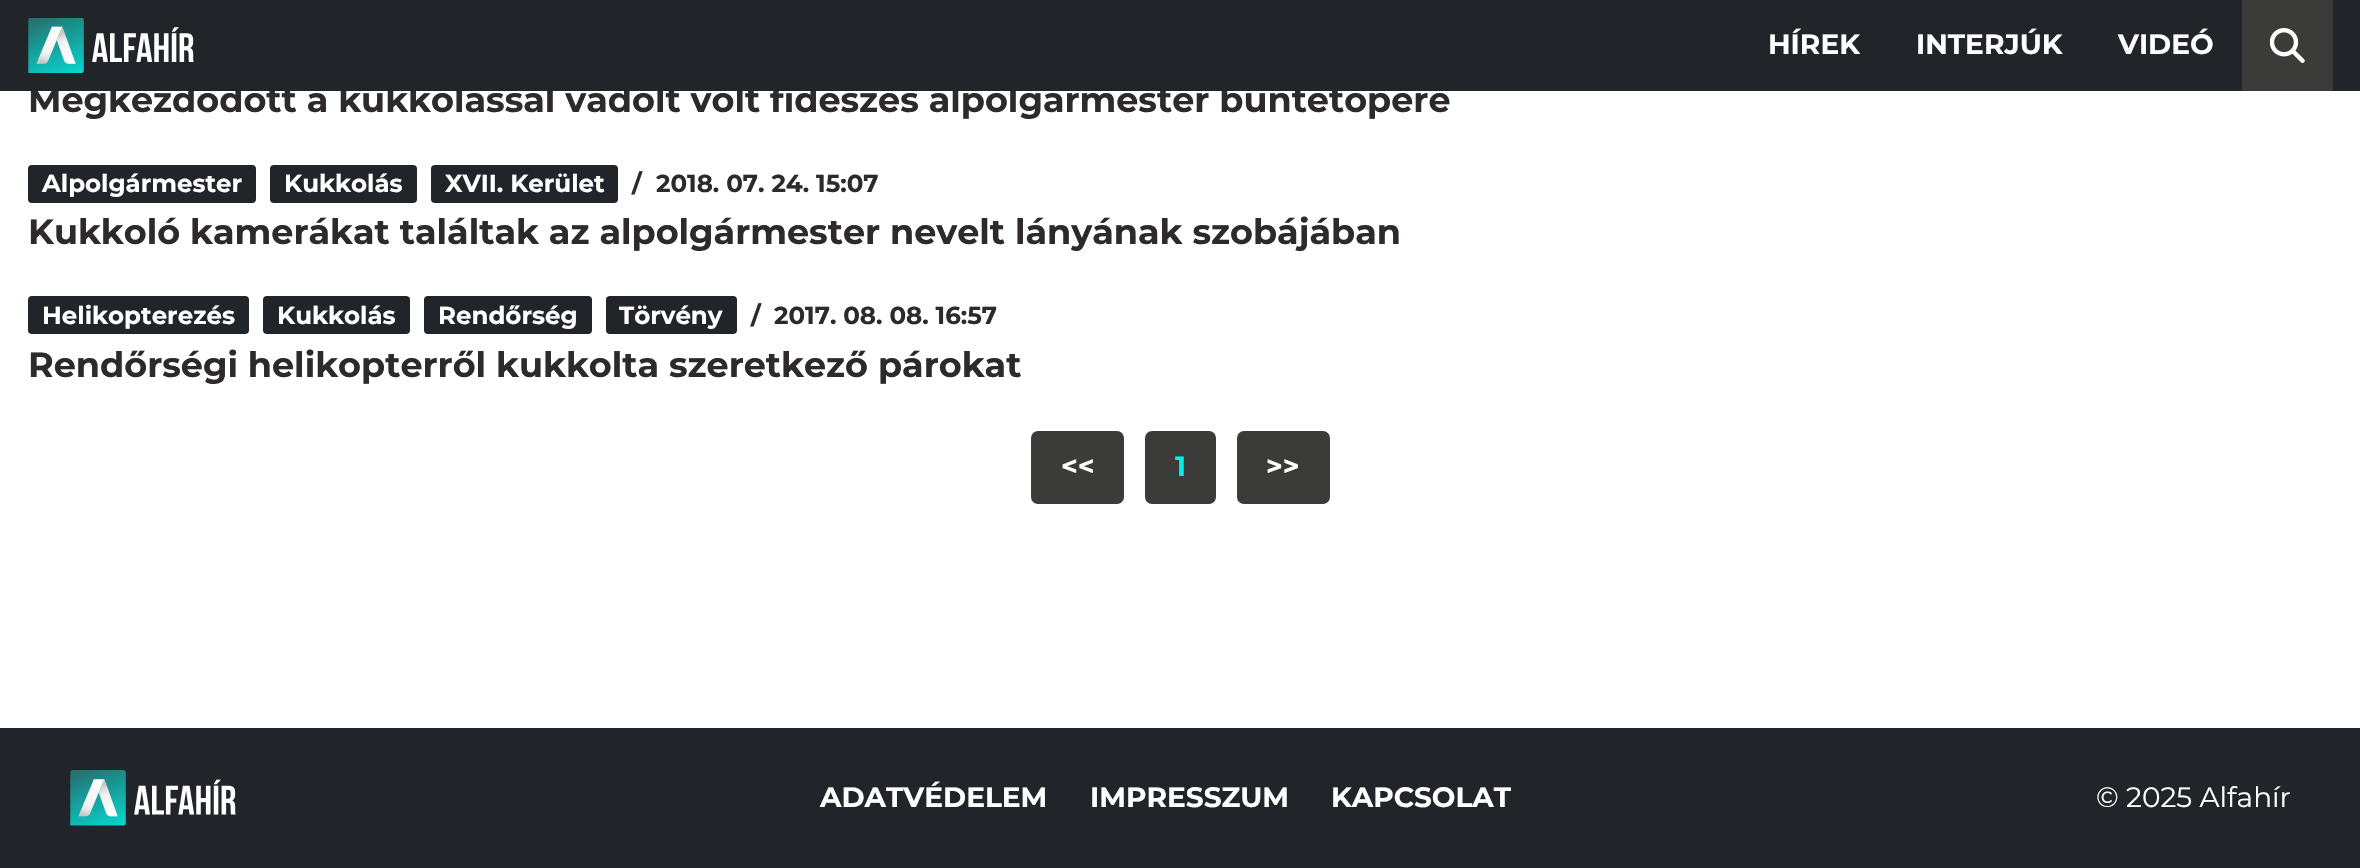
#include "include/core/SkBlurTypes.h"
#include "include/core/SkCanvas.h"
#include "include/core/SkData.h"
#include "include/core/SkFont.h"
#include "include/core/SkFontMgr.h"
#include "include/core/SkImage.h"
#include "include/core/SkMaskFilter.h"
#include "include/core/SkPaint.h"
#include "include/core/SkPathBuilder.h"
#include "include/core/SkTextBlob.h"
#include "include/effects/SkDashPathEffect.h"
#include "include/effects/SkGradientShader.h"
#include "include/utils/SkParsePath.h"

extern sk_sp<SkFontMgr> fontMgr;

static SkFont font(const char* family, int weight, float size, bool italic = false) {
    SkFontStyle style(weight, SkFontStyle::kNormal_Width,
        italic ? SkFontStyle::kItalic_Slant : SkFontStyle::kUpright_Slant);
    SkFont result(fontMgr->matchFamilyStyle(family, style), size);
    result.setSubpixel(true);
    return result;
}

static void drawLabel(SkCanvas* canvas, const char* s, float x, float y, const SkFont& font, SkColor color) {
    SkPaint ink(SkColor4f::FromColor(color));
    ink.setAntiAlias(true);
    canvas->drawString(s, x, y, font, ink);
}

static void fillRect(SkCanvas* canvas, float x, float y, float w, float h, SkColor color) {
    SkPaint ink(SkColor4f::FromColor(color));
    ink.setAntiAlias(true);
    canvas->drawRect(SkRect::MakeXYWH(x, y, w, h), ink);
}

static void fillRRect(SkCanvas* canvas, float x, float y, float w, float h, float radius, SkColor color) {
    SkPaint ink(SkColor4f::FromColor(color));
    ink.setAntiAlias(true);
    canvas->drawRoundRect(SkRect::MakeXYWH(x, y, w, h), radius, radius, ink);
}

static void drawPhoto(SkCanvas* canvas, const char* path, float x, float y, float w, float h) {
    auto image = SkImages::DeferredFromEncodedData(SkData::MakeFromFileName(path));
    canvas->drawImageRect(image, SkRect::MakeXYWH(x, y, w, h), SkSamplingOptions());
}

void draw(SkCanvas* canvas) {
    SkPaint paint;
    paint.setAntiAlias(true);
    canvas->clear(0xFFFFFFFF);
    SkFont font1 = font("Montserrat", 700, 35);
    drawLabel(canvas, "Megkezdődött a kukkolással vádolt volt fideszes alpolgármester büntetőpere", 28, 112, font1, 0xFF2E292A);
    fillRect(canvas, 0, 0, 2360, 91, 0xFF212529);
    drawPhoto(canvas, "assets/img1.png", 28, 18, 166, 55);
    SkFont font2 = font("Montserrat", 700, 28);
    drawLabel(canvas, "HÍREK", 1768, 54, font2, 0xFFFFFFFF);
    drawLabel(canvas, "INTERJÚK", 1916, 54, font2, 0xFFFFFFFF);
    drawLabel(canvas, "VIDEÓ", 2118, 54, font2, 0xFFFFFFFF);
    fillRect(canvas, 2242, 0, 91, 91, 0xFF3B3B3A);
    drawPhoto(canvas, "assets/img2.png", 2270, 28, 35, 35);
    fillRRect(canvas, 28, 165, 228, 38, 4, 0xFF212529);
    SkFont font3 = font("Montserrat", 700, 24.5f);
    drawLabel(canvas, "Alpolgármester", 42, 192, font3, 0xFFFFFFFF);
    fillRRect(canvas, 270, 165, 147, 38, 4, 0xFF212529);
    drawLabel(canvas, "Kukkolás", 284, 192, font3, 0xFFFFFFFF);
    fillRRect(canvas, 431, 165, 187, 38, 4, 0xFF212529);
    drawLabel(canvas, "XVII. Kerület", 445, 192, font3, 0xFFFFFFFF);
    drawLabel(canvas, "/", 632, 192, font3, 0xFF2E292A);
    drawLabel(canvas, "2018. 07. 24. 15:07", 656, 192, font3, 0xFF2E292A);
    drawLabel(canvas, "Kukkoló kamerákat találtak az alpolgármester nevelt lányának szobájában", 28, 244, font1, 0xFF2E292A);
    fillRRect(canvas, 28, 296, 221, 38, 4, 0xFF212529);
    drawLabel(canvas, "Helikopterezés", 42, 324, font3, 0xFFFFFFFF);
    fillRRect(canvas, 263, 296, 147, 38, 4, 0xFF212529);
    drawLabel(canvas, "Kukkolás", 277, 324, font3, 0xFFFFFFFF);
    fillRRect(canvas, 424, 296, 168, 38, 4, 0xFF212529);
    drawLabel(canvas, "Rendőrség", 438, 324, font3, 0xFFFFFFFF);
    fillRRect(canvas, 606, 296, 131, 38, 4, 0xFF212529);
    drawLabel(canvas, "Törvény", 619, 324, font3, 0xFFFFFFFF);
    drawLabel(canvas, "/", 751, 324, font3, 0xFF2E292A);
    drawLabel(canvas, "2017. 08. 08. 16:57", 774, 324, font3, 0xFF2E292A);
    drawLabel(canvas, "Rendőrségi helikopterről kukkolta szeretkező párokat", 28, 377, font1, 0xFF2E292A);
    paint.setColor(0xFF3B3B3A);
    canvas->drawRoundRect(SkRect::MakeXYWH(1032, 432, 91, 71), 6, 6, paint);
    paint.setStroke(true);
    paint.setStrokeWidth(2);
    canvas->drawRoundRect(SkRect::MakeXYWH(1032, 432, 91, 71), 6, 6, paint);
    drawLabel(canvas, "<<", 1061, 476, font2, 0xFFFFFFFF);
    paint.setStroke(false);
    canvas->drawRoundRect(SkRect::MakeXYWH(1146, 432, 69, 71), 6, 6, paint);
    paint.setStroke(true);
    canvas->drawRoundRect(SkRect::MakeXYWH(1146, 432, 69, 71), 6, 6, paint);
    drawLabel(canvas, "1", 1175, 476, font2, 0xFF00F0E8);
    paint.setStroke(false);
    canvas->drawRoundRect(SkRect::MakeXYWH(1238, 432, 91, 71), 6, 6, paint);
    paint.setStroke(true);
    canvas->drawRoundRect(SkRect::MakeXYWH(1238, 432, 91, 71), 6, 6, paint);
    drawLabel(canvas, ">>", 1266, 476, font2, 0xFFFFFFFF);
    fillRect(canvas, 0, 728, 2360, 140, 0xFF212529);
    drawPhoto(canvas, "assets/img3.png", 70, 770, 166, 56);
    drawLabel(canvas, "ADATVÉDELEM", 820, 807, font2, 0xFFFFFFFF);
    drawLabel(canvas, "IMPRESSZUM", 1090, 807, font2, 0xFFFFFFFF);
    drawLabel(canvas, "KAPCSOLAT", 1331, 807, font2, 0xFFFFFFFF);
    SkFont font4 = font("Montserrat", 400, 28);
    drawLabel(canvas, "© 2025 Alfahír", 2096, 807, font4, 0xFFFFFFFF);
}
